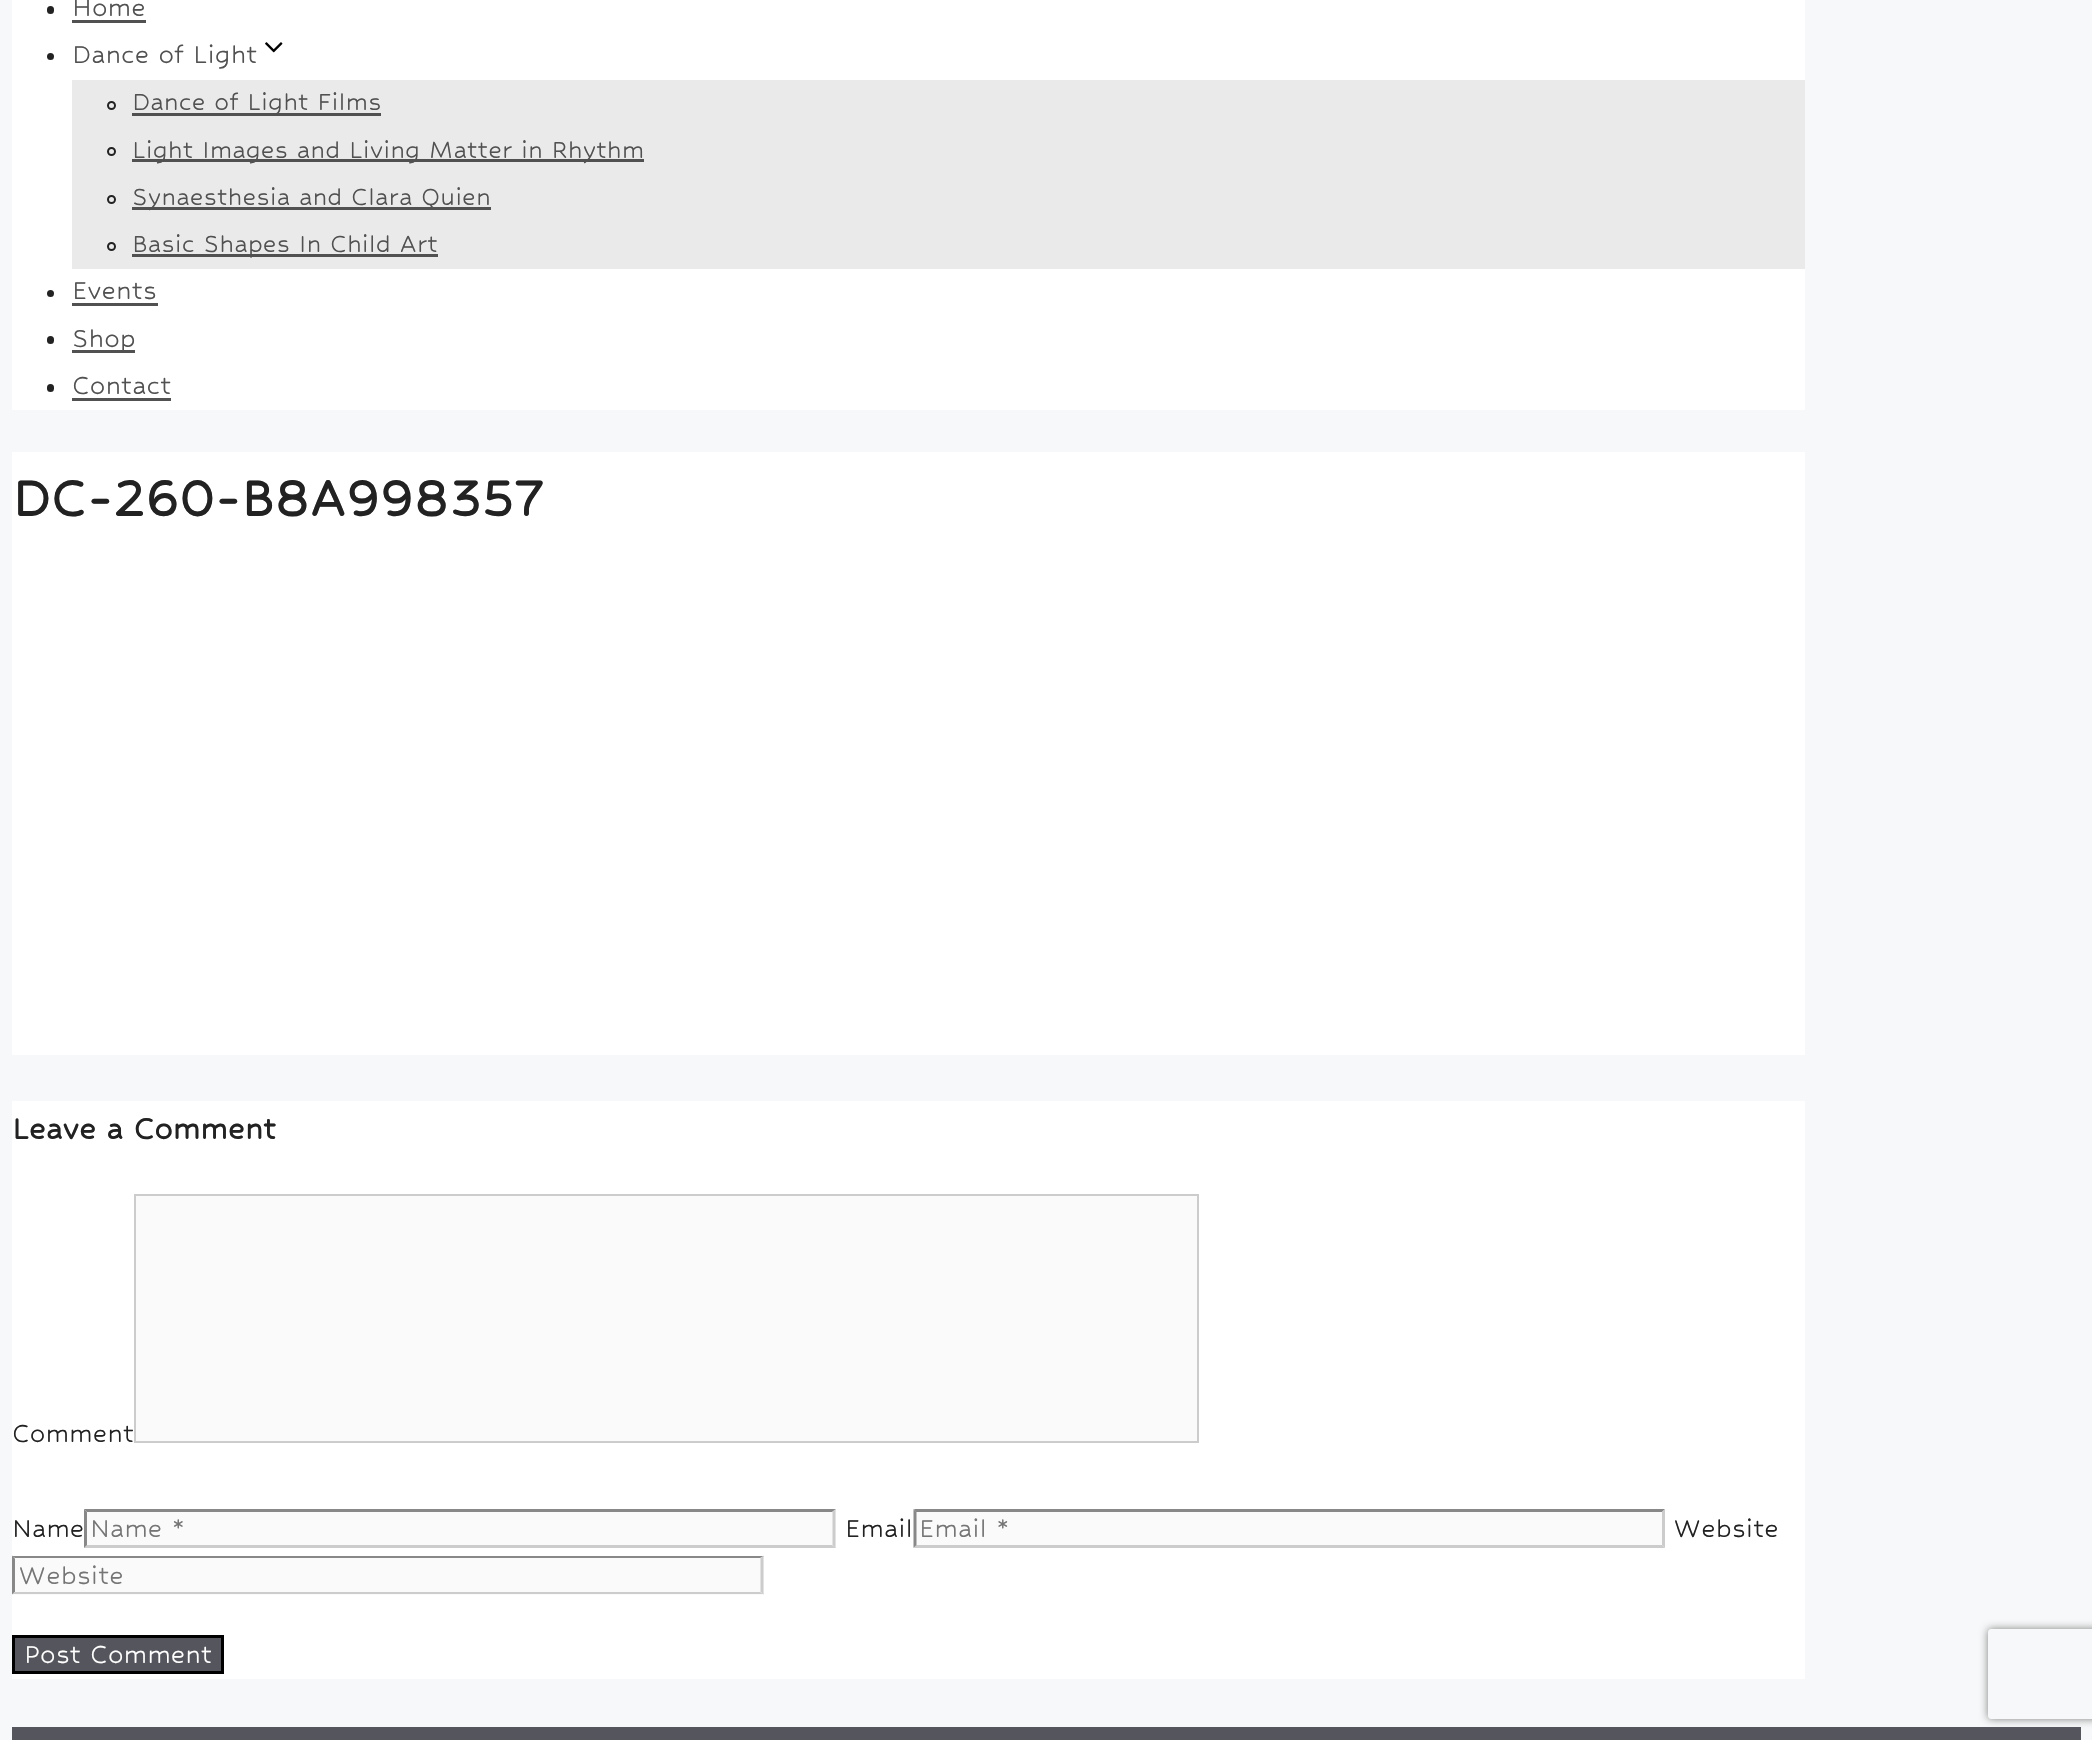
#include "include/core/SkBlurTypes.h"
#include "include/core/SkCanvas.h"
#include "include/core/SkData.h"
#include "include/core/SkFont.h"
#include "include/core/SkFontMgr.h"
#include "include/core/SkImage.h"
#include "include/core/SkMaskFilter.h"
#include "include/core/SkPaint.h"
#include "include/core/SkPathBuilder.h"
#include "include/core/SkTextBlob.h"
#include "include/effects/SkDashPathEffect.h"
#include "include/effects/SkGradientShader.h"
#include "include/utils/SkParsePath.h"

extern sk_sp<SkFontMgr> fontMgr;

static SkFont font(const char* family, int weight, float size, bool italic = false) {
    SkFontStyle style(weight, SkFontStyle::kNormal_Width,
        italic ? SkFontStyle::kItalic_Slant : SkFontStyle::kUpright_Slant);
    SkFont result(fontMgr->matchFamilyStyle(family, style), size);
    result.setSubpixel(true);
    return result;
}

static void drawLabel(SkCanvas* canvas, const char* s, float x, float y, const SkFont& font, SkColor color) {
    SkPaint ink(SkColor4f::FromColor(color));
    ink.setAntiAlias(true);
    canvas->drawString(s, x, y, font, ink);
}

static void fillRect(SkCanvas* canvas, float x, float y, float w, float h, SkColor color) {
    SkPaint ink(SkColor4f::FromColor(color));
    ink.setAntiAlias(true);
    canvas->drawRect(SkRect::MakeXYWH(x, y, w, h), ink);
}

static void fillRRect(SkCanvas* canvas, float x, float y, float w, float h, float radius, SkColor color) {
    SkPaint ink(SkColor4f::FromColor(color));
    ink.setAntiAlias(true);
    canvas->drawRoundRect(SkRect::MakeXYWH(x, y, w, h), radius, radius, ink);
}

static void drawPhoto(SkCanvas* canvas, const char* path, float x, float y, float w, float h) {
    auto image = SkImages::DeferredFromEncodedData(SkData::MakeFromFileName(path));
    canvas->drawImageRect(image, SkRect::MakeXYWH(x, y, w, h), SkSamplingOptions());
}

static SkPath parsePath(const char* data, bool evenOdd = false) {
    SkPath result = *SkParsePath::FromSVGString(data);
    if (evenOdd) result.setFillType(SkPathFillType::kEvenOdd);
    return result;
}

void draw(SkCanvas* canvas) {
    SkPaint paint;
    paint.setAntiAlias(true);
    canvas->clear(0xFFF7F8F9);
    fillRect(canvas, 12, 0, 1793, 410, 0xFFFFFFFF);
    fillRRect(canvas, 47, 6, 7, 8, 3.5f, 0xFF222222);
    SkFont font1 = font("Hubballi", 400, 31.5f);
    drawLabel(canvas, "Home", 72, 16, font1, 0xFF515151);
    fillRect(canvas, 72, 20, 74, 3, 0xFF515151);
    paint.setColor(0xFF222222);
    canvas->drawCircle(50.5f, 56.5f, 3.5f, paint);
    drawLabel(canvas, "Dance of Light", 72, 63, font1, 0xFF515151);
    drawPhoto(canvas, "assets/img1.png", 265, 42, 18, 11);
    fillRect(canvas, 72, 80, 1733, 189, 0xFFEAEAEA);
    paint.setStroke(true);
    paint.setStrokeWidth(2);
    canvas->drawCircle(111.5f, 105.5f, 3.5f, paint);
    fillRect(canvas, 132, 113, 249, 3, 0xFF515151);
    SkFont font2 = font("Hubballi", 400, 30);
    drawLabel(canvas, "Dance of Light Films", 132, 110, font2, 0xFF515151);
    canvas->drawCircle(111.5f, 151.5f, 3.5f, paint);
    fillRect(canvas, 132, 159, 512, 3, 0xFF515151);
    drawLabel(canvas, "Light Images and Living Matter in Rhythm", 132, 158, font2, 0xFF515151);
    canvas->drawCircle(111.5f, 199.5f, 3.5f, paint);
    fillRect(canvas, 132, 207, 359, 3, 0xFF515151);
    drawLabel(canvas, "Synaesthesia and Clara Quien", 132, 205, font2, 0xFF515151);
    canvas->drawCircle(111.5f, 246.5f, 3.5f, paint);
    fillRect(canvas, 132, 254, 306, 3, 0xFF515151);
    drawLabel(canvas, "Basic Shapes In Child Art", 132, 252, font2, 0xFF515151);
    paint.setStroke(false);
    canvas->drawCircle(50.5f, 293.5f, 3.5f, paint);
    drawLabel(canvas, "Events", 72, 299, font1, 0xFF515151);
    fillRect(canvas, 72, 303, 86, 3, 0xFF515151);
    fillRRect(canvas, 47, 336, 7, 8, 3.5f, 0xFF222222);
    fillRect(canvas, 72, 350, 63, 3, 0xFF515151);
    drawLabel(canvas, "Shop", 72, 347, font1, 0xFF515151);
    fillRRect(canvas, 47, 384, 7, 8, 3.5f, 0xFF222222);
    drawLabel(canvas, "Contact", 72, 394, font1, 0xFF515151);
    fillRect(canvas, 72, 398, 99, 3, 0xFF515151);
    fillRect(canvas, 12, 452, 1793, 603, 0xFFFFFFFF);
    SkFont font3 = font("Hubballi", 700, 63);
    drawLabel(canvas, "DC-260-B8A998357", 12, 516, font3, 0xFF222222);
    fillRect(canvas, 12, 1101, 1793, 578, 0xFFFFFFFF);
    SkFont font4 = font("Hubballi", 700, 36.75f);
    drawLabel(canvas, "Leave a Comment", 12, 1139, font4, 0xFF222222);
    drawLabel(canvas, "Comment", 12, 1442, font1, 0xFF222222);
    paint.setColor(0xFFFAFAFA);
    canvas->drawRect(SkRect::MakeXYWH(135, 1195, 1063, 247), paint);
    paint.setStroke(true);
    paint.setColor(0xFFCCCCCC);
    canvas->drawRect(SkRect::MakeXYWH(135, 1195, 1063, 247), paint);
    drawLabel(canvas, "Name", 12, 1537, font1, 0xFF222222);
    fillRect(canvas, 84, 1509, 752, 39, 0xFFFAFAFA);
    paint.setStroke(false);
    paint.setColor(0xFF888888);
    canvas->drawPath(parsePath("M84 1509H836L832 1512H87Z"), paint);
    paint.setColor(0xFFCCCCCC);
    canvas->drawPath(parsePath("M835.5 1509V1548L832.5 1545V1512Z"), paint);
    canvas->drawPath(parsePath("M836 1548H84L87 1545H832Z"), paint);
    paint.setColor(0xFF888888);
    canvas->drawPath(parsePath("M84 1548V1509L87 1512V1545Z"), paint);
    drawLabel(canvas, "Name *", 90, 1537, font1, 0xFF757575);
    drawLabel(canvas, "Email", 845, 1537, font1, 0xFF222222);
    fillRect(canvas, 914, 1509, 751, 39, 0xFFFAFAFA);
    canvas->drawPath(parsePath("M914 1509H1665L1662 1512H916Z"), paint);
    paint.setColor(0xFFCCCCCC);
    canvas->drawPath(parsePath("M1665 1509V1548L1662 1545V1512Z"), paint);
    canvas->drawPath(parsePath("M1665 1548H914L916 1545H1662Z"), paint);
    paint.setColor(0xFF888888);
    canvas->drawPath(parsePath("M913.5 1548V1509L916.5 1512V1545Z"), paint);
    drawLabel(canvas, "Email *", 919, 1537, font1, 0xFF757575);
    drawLabel(canvas, "Website", 1673, 1537, font1, 0xFF222222);
    fillRect(canvas, 12, 1556, 752, 39, 0xFFFAFAFA);
    canvas->drawPath(parsePath("M12 1556H764L760 1558H15Z"), paint);
    paint.setColor(0xFFCCCCCC);
    canvas->drawPath(parsePath("M763.5 1555.5V1594.5L760.5 1591.5V1558.5Z"), paint);
    canvas->drawPath(parsePath("M764 1594H12L15 1592H760Z"), paint);
    paint.setColor(0xFF888888);
    canvas->drawPath(parsePath("M12 1594.5V1555.5L15 1558.5V1591.5Z"), paint);
    drawLabel(canvas, "Website", 18, 1584, font1, 0xFF757575);
    paint.setColor(0xFF55555E);
    canvas->drawRect(SkRect::MakeXYWH(13.5f, 1636.5f, 209, 36), paint);
    paint.setStroke(true);
    paint.setStrokeWidth(3);
    paint.setColor(0xFF000000);
    canvas->drawRect(SkRect::MakeXYWH(13.5f, 1636.5f, 209, 36), paint);
    drawLabel(canvas, "Post Comment", 24, 1663, font1, 0xFFFFFFFF);
    fillRect(canvas, 12, 1727, 2069, 13, 0xFF55555E);
    canvas->save();
    canvas->clipPath(parsePath("M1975 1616H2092V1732H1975ZM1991 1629H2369C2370.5 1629 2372 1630.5 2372 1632V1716C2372 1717.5 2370.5 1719 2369 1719H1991C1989.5 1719 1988 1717.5 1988 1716V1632C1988 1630.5 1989.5 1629 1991 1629Z", true), true);
    paint.setStroke(false);
    paint.setColor(0xFF808080);
    paint.setMaskFilter(SkMaskFilter::MakeBlur(kNormal_SkBlurStyle, 4));
    canvas->drawRoundRect(SkRect::MakeXYWH(1988, 1629, 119, 90), 3, 3, paint);
    paint.setMaskFilter(nullptr);
    canvas->restore();
}
